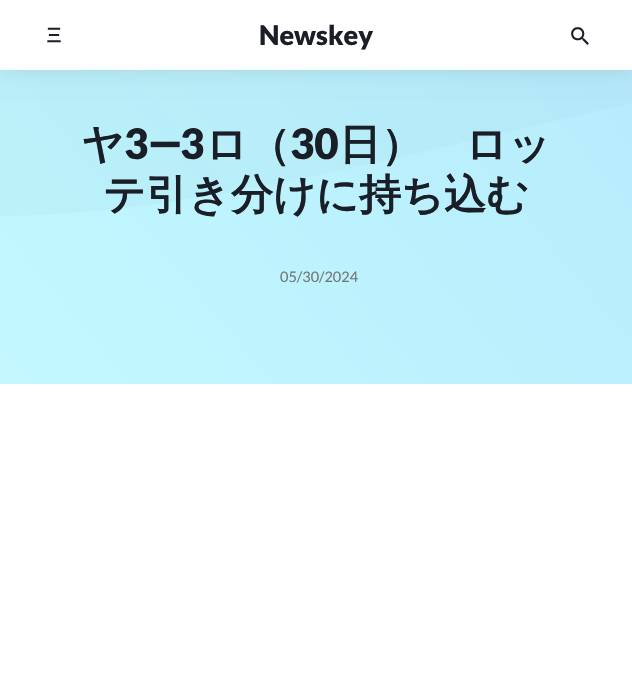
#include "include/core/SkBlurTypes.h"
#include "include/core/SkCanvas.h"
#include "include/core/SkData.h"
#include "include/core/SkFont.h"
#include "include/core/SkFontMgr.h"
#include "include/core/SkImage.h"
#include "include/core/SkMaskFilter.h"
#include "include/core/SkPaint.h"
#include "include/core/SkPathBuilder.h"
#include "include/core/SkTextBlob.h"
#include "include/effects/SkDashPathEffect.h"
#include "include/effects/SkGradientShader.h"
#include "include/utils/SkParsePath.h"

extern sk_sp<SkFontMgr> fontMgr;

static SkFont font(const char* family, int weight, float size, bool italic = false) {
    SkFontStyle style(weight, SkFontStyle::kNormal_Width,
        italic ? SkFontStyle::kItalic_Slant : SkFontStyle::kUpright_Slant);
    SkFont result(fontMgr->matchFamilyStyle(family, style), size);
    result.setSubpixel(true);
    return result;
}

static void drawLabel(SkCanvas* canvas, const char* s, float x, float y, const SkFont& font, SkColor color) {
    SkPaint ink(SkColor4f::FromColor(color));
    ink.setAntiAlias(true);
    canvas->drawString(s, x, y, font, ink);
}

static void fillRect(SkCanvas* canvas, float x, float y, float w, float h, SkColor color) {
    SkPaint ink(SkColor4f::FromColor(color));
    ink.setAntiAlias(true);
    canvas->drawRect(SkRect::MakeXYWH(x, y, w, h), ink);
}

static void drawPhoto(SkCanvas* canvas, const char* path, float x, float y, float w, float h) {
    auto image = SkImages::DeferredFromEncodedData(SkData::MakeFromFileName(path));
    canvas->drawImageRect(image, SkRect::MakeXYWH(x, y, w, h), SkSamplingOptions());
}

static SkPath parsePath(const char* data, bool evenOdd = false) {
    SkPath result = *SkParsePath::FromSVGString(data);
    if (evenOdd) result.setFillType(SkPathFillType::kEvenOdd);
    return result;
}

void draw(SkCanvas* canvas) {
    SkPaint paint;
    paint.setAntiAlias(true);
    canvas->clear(0xFFFFFFFF);
    paint.setColor(0xFFF8F8F8);
    canvas->drawPath(parsePath("M-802 9L-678 59C-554 109-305 208-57 216C191 225 440 141 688 92C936 42 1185 26 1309 18L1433 9V-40H-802Z"), paint);
    {
        const SkColor colors[] = {0x4D3CE7FB, 0x7A69D4FB};
        const float stops[] = {0, 1};
        const SkPoint ends[] = {{36, 427}, {596, -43}};
        paint.setShader(SkGradientShader::MakeLinear(ends, colors, stops, 2, SkTileMode::kClamp));
        paint.setAlpha(255);
    }
    canvas->drawRect(SkRect::MakeXYWH(0, 70, 632, 314), paint);
    paint.setShader(nullptr);
    paint.setColor(0x1A000000);
    paint.setMaskFilter(SkMaskFilter::MakeBlur(kNormal_SkBlurStyle, 10));
    canvas->drawRect(SkRect::MakeXYWH(0, 0, 632, 70), paint);
    paint.setMaskFilter(nullptr);
    fillRect(canvas, 0, 0, 632, 70, 0xFFFFFFFF);
    drawPhoto(canvas, "assets/img1.png", 47, 27, 14, 16);
    SkFont font1 = font("Lato", 900, 27);
    drawLabel(canvas, "Newskey", 259, 45, font1, 0xFF191E27);
    drawPhoto(canvas, "assets/img2.png", 571, 27, 18, 18);
    SkFont font2 = font("WenQuanYi Zen Hei", 700, 42);
    drawLabel(canvas, "ヤ", 81, 159, font2, 0xFF191E27);
    SkFont font3 = font("Lato", 900, 42);
    drawLabel(canvas, "3", 124, 159, font3, 0xFF191E27);
    SkFont font4 = font("Roboto", 900, 42);
    drawLabel(canvas, "―", 149, 159, font4, 0xFF191E27);
    drawLabel(canvas, "3", 180, 159, font3, 0xFF191E27);
    drawLabel(canvas, "ロ（", 205, 159, font2, 0xFF191E27);
    drawLabel(canvas, "30", 290, 159, font3, 0xFF191E27);
    drawLabel(canvas, "日）　ロッ", 339, 159, font2, 0xFF191E27);
    drawLabel(canvas, "テ引き分けに持ち込む", 103, 209, font2, 0xFF191E27);
    SkFont font5 = font("Lato", 400, 14.5f);
    drawLabel(canvas, "05/30/2024", 280, 282, font5, 0xFF757575);
}
